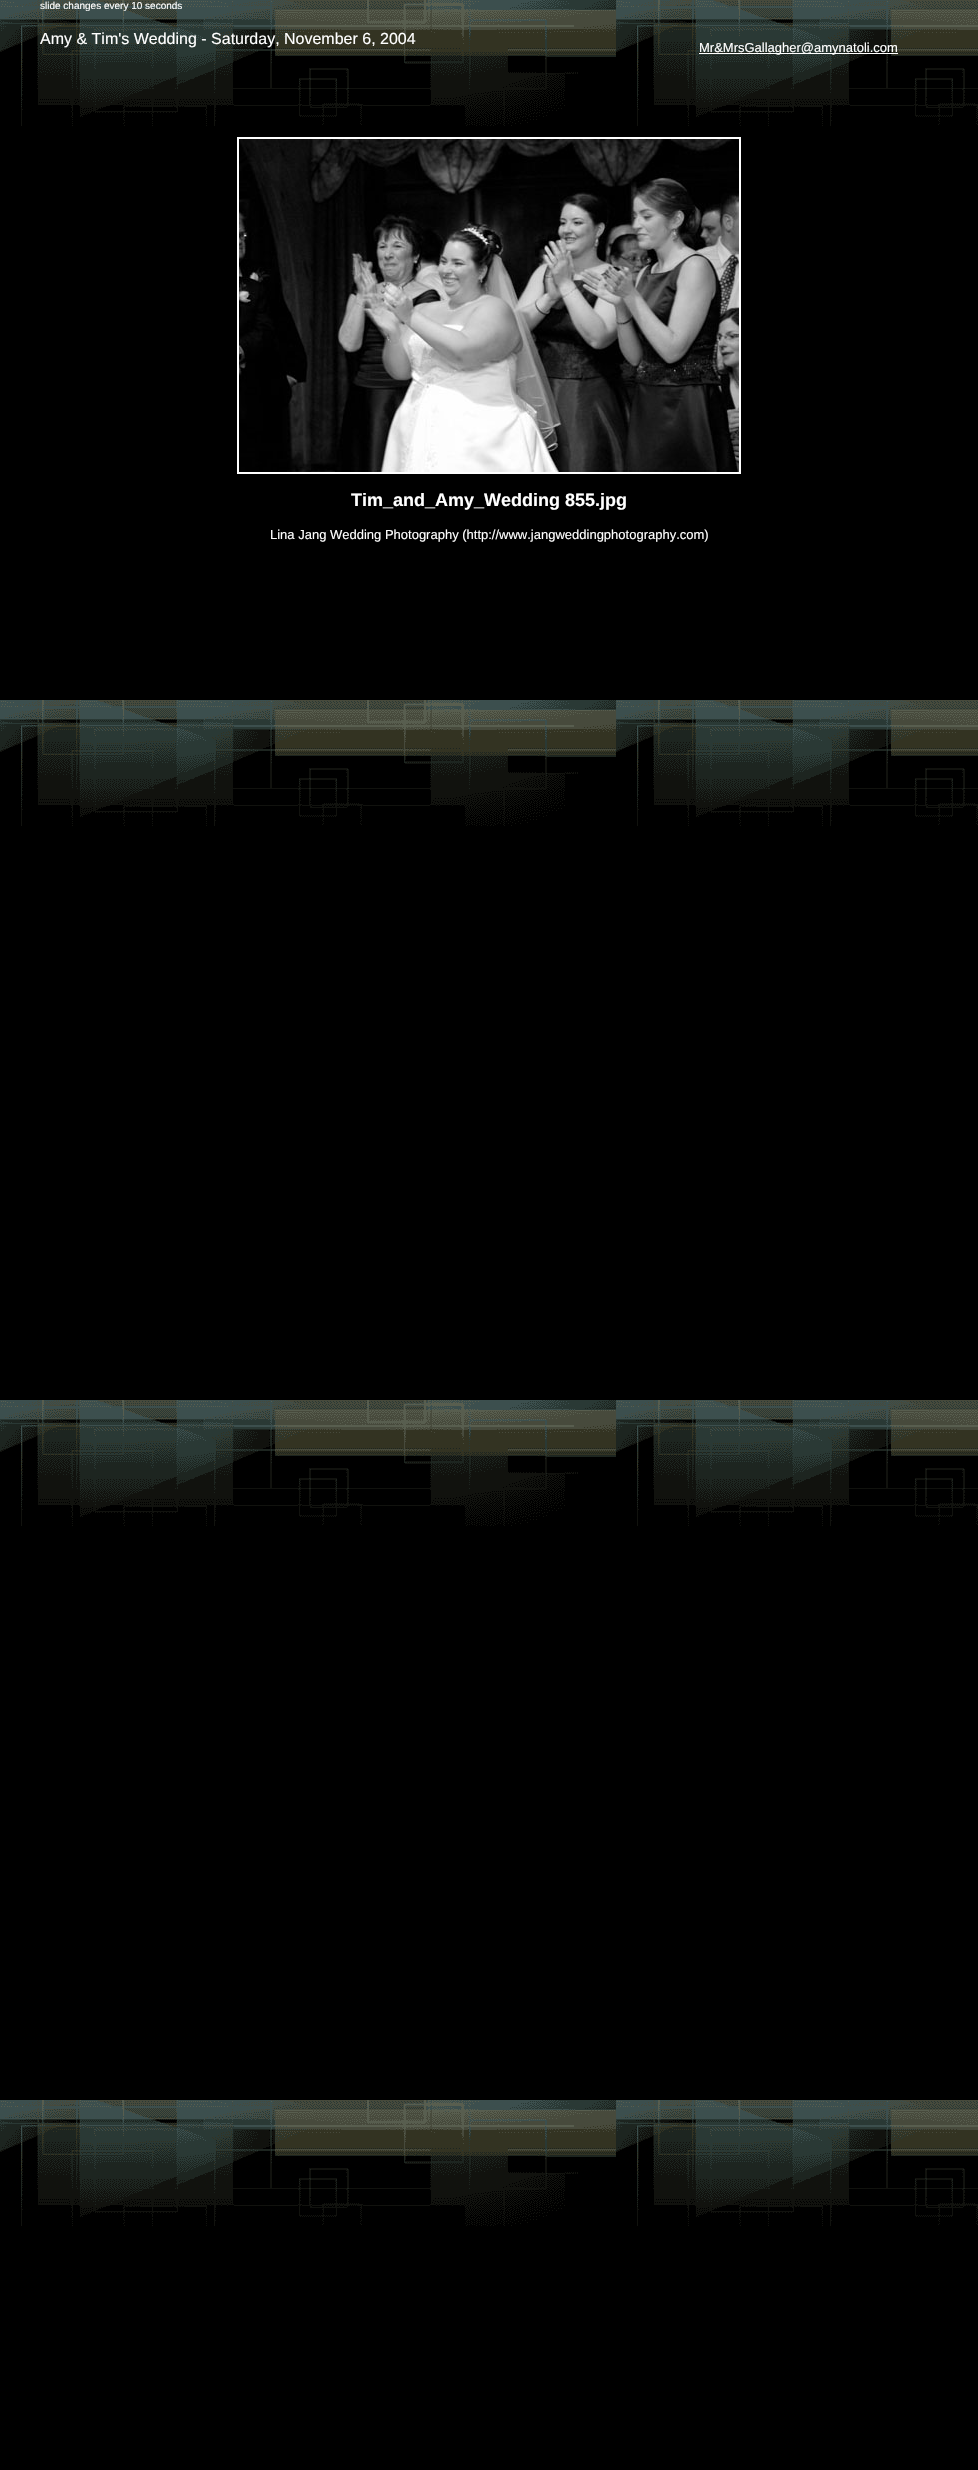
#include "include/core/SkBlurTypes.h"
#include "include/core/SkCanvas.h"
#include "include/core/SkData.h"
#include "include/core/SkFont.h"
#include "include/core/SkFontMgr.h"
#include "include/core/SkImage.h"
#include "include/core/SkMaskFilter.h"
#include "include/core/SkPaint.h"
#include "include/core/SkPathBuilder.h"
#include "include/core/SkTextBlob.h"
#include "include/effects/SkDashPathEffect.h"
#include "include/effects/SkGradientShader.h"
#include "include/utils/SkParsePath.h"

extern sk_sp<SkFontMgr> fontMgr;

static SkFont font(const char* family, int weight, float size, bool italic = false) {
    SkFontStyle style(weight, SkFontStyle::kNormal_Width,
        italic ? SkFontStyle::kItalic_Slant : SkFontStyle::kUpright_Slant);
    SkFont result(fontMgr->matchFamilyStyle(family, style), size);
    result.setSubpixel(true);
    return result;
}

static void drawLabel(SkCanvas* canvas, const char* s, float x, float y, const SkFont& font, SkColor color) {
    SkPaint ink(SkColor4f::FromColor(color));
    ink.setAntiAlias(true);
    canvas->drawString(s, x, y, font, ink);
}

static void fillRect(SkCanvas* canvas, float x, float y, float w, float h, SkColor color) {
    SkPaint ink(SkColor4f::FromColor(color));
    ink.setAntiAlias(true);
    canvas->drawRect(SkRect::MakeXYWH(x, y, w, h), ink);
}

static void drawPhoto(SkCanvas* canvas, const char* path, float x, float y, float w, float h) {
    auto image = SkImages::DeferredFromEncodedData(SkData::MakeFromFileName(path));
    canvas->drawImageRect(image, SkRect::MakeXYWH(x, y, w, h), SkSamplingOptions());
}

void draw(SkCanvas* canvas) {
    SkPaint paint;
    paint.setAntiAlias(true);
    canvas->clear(0xFF000000);
    drawPhoto(canvas, "assets/img1.png", 0, 0, 978, 2226);
    SkFont font1 = font("Liberation Sans", 400, 10);
    drawLabel(canvas, "slide changes every 10 seconds", 40, 9, font1, 0xFFFFFFFF);
    SkFont font2 = font("Liberation Sans", 400, 16);
    drawLabel(canvas, "Amy & Tim's Wedding - Saturday, November 6, 2004", 40, 44, font2, 0xFFFFFFFF);
    fillRect(canvas, 699, 53, 199, 1, 0xFFFFFFFF);
    SkFont font3 = font("Liberation Sans", 400, 13);
    drawLabel(canvas, "Mr&MrsGallagher@amynatoli.com", 699, 52, font3, 0xFFFFFFFF);
    paint.setStroke(true);
    paint.setStrokeWidth(2);
    paint.setColor(0xFFFFFFFF);
    canvas->drawRect(SkRect::MakeXYWH(238, 138, 502, 335), paint);
    drawPhoto(canvas, "assets/img2.png", 239, 139, 500, 333);
    SkFont font4 = font("Liberation Sans", 700, 18);
    drawLabel(canvas, "Tim_and_Amy_Wedding 855.jpg", 351, 506, font4, 0xFFFFFFFF);
    drawLabel(canvas, "Lina Jang Wedding Photography (http://www.jangweddingphotography.com)", 270, 539, font3, 0xFFFFFFFF);
}
